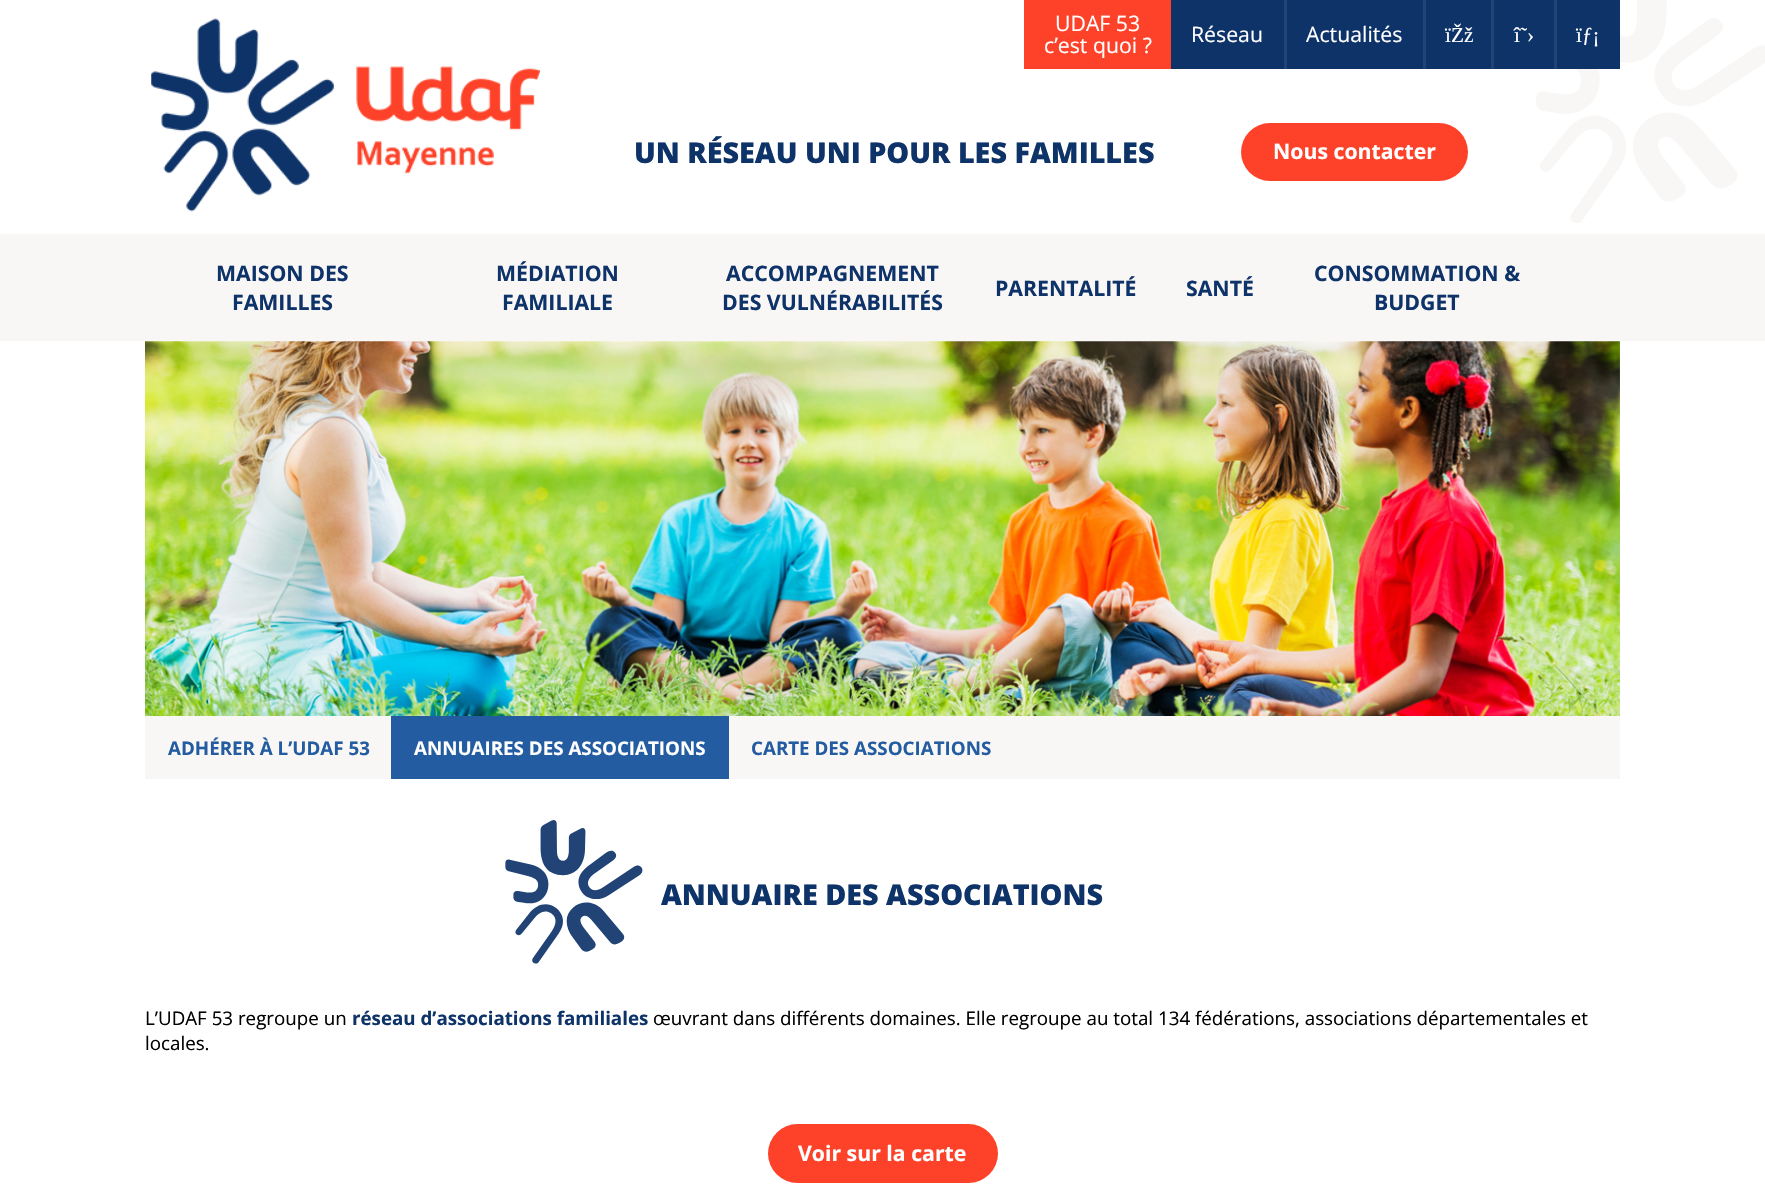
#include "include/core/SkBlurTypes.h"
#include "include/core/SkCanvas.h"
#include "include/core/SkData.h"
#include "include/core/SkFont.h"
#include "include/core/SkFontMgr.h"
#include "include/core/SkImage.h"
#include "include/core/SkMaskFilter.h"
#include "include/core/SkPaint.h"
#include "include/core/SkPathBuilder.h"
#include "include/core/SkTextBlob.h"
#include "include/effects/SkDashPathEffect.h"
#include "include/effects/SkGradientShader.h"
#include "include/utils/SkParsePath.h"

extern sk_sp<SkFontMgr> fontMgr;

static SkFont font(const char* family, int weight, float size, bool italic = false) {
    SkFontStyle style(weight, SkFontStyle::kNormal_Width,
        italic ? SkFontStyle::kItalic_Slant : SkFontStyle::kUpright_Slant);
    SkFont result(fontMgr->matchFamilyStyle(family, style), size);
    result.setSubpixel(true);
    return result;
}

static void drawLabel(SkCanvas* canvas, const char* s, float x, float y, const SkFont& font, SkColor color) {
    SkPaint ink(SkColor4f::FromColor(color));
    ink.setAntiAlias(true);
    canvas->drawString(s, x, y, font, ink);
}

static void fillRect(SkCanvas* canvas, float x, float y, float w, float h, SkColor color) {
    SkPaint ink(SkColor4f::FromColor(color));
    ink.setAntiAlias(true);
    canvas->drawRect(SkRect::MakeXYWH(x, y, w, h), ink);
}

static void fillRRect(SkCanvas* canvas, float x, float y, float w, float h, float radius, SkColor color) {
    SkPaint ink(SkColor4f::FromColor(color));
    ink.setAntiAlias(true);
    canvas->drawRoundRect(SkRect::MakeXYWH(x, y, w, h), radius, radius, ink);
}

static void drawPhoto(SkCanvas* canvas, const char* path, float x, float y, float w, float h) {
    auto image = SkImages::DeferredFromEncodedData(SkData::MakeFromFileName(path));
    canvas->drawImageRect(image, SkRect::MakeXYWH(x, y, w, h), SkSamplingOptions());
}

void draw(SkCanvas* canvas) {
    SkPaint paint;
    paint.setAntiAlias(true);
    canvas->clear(0xFFFFFFFF);
    drawPhoto(canvas, "assets/img1.png", 151, 18, 389, 194);
    drawPhoto(canvas, "assets/img2.png", 1536, 0, 229, 223);
    fillRect(canvas, 1171, 0, 449, 69, 0xFF0E3369);
    fillRect(canvas, 1024, 0, 147, 69, 0xFFFE4229);
    SkFont font1 = font("Open Sans", 400, 21.25f);
    drawLabel(canvas, "UDAF 53", 1055, 31, font1, 0xFFFFFFFF);
    drawLabel(canvas, "c’est quoi ?", 1044, 53, font1, 0xFFFFFFFF);
    fillRect(canvas, 1284, 0, 3, 69, 0xFF214375);
    drawLabel(canvas, "Réseau", 1191, 42, font1, 0xFFFFFFFF);
    fillRect(canvas, 1423, 0, 3, 69, 0xFF214375);
    drawLabel(canvas, "Actualités", 1306, 42, font1, 0xFFFFFFFF);
    fillRect(canvas, 1491, 0, 3, 69, 0xFF214375);
    SkFont font2 = font("Liberation Serif", 400, 21.25f);
    drawLabel(canvas, "ïŽž", 1445, 42, font2, 0xFFFFFFFF);
    fillRect(canvas, 1554, 0, 3, 69, 0xFF214375);
    drawLabel(canvas, "î˜›", 1514, 42, font2, 0xFFFFFFFF);
    drawLabel(canvas, "ïƒ¡", 1576, 42, font2, 0xFFFFFFFF);
    SkFont font3 = font("Open Sans", 800, 28.75f);
    drawLabel(canvas, "UN RÉSEAU UNI POUR LES FAMILLES", 634, 163, font3, 0xFF0E3369);
    fillRRect(canvas, 1241, 123, 227, 58, 29, 0xFFFE4229);
    SkFont font4 = font("Open Sans", 700, 21.25f);
    drawLabel(canvas, "Nous contacter", 1273, 159, font4, 0xFFFFFFFF);
    fillRect(canvas, 0, 234, 1765, 107, 0xFFF9F6F6);
    drawLabel(canvas, "MAISON DES", 216, 281, font4, 0xFF0E3369);
    drawLabel(canvas, "FAMILLES", 232, 310, font4, 0xFF0E3369);
    drawLabel(canvas, "MÉDIATION", 496, 281, font4, 0xFF0E3369);
    drawLabel(canvas, "FAMILIALE", 502, 310, font4, 0xFF0E3369);
    drawLabel(canvas, "ACCOMPAGNEMENT", 726, 281, font4, 0xFF0E3369);
    drawLabel(canvas, "DES VULNÉRABILITÉS", 722, 310, font4, 0xFF0E3369);
    drawLabel(canvas, "PARENTALITÉ", 995, 296, font4, 0xFF0E3369);
    drawLabel(canvas, "SANTÉ", 1186, 296, font4, 0xFF0E3369);
    drawLabel(canvas, "CONSOMMATION &", 1314, 281, font4, 0xFF0E3369);
    drawLabel(canvas, "BUDGET", 1374, 310, font4, 0xFF0E3369);
    drawPhoto(canvas, "assets/img3.png", 145, 341, 1475, 375);
    fillRect(canvas, 145, 716, 1475, 63, 0xFFF9F6F6);
    SkFont font5 = font("Open Sans", 700, 18.75f);
    drawLabel(canvas, "ADHÉRER À L’UDAF 53", 168, 755, font5, 0xFF235CA0);
    fillRect(canvas, 391, 716, 338, 63, 0xFF235CA0);
    drawLabel(canvas, "ANNUAIRES DES ASSOCIATIONS", 414, 755, font5, 0xFFFFFFFF);
    drawLabel(canvas, "CARTE DES ASSOCIATIONS", 751, 755, font5, 0xFF235CA0);
    drawPhoto(canvas, "assets/img4.png", 505, 820, 138, 144);
    drawLabel(canvas, "ANNUAIRE DES ASSOCIATIONS", 661, 905, font3, 0xFF0E3369);
    SkFont font6 = font("Open Sans", 400, 18.75f);
    drawLabel(canvas, "L’UDAF 53 regroupe un", 145, 1025, font6, 0xFF000000);
    drawLabel(canvas, "réseau d’associations familiales", 352, 1025, font5, 0xFF0E3369);
    drawLabel(canvas, "œuvrant dans différents domaines. Elle regroupe au total 134 fédérations, associations départementales et", 653, 1025, font6, 0xFF000000);
    drawLabel(canvas, "locales.", 145, 1050, font6, 0xFF000000);
    fillRRect(canvas, 768, 1124, 230, 59, 29.5f, 0xFFFE4229);
    drawLabel(canvas, "Voir sur la carte", 798, 1161, font4, 0xFFFFFFFF);
}
